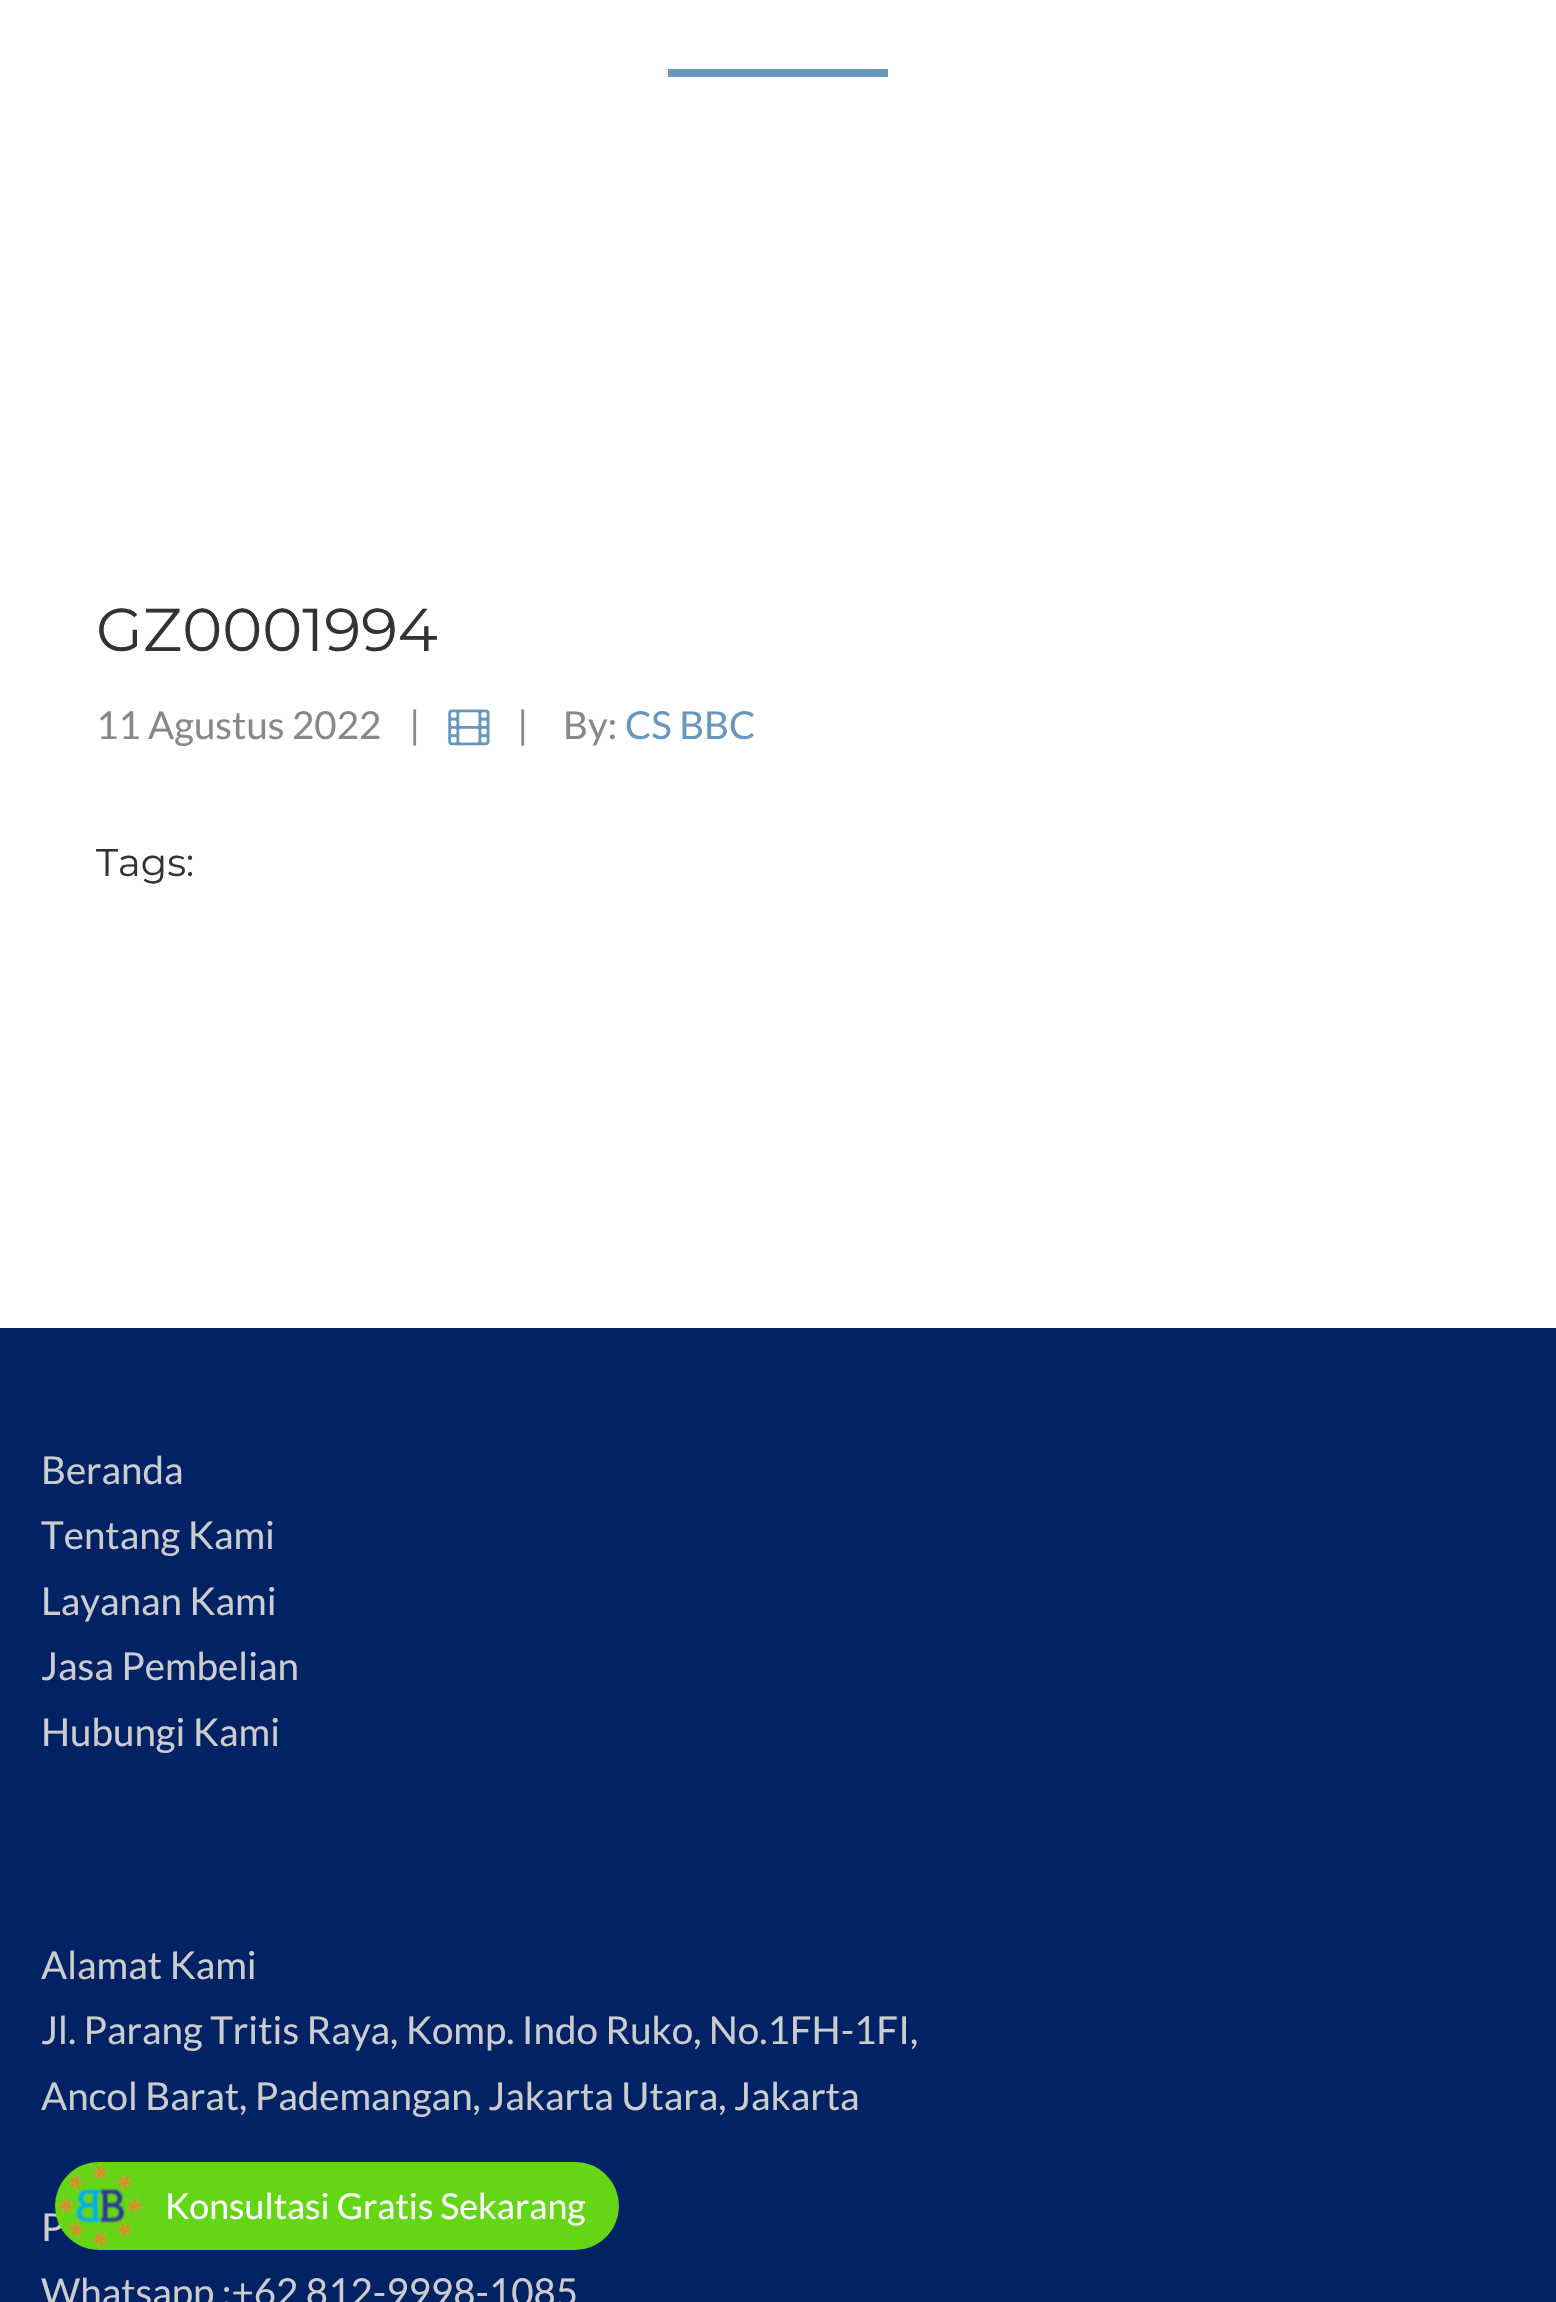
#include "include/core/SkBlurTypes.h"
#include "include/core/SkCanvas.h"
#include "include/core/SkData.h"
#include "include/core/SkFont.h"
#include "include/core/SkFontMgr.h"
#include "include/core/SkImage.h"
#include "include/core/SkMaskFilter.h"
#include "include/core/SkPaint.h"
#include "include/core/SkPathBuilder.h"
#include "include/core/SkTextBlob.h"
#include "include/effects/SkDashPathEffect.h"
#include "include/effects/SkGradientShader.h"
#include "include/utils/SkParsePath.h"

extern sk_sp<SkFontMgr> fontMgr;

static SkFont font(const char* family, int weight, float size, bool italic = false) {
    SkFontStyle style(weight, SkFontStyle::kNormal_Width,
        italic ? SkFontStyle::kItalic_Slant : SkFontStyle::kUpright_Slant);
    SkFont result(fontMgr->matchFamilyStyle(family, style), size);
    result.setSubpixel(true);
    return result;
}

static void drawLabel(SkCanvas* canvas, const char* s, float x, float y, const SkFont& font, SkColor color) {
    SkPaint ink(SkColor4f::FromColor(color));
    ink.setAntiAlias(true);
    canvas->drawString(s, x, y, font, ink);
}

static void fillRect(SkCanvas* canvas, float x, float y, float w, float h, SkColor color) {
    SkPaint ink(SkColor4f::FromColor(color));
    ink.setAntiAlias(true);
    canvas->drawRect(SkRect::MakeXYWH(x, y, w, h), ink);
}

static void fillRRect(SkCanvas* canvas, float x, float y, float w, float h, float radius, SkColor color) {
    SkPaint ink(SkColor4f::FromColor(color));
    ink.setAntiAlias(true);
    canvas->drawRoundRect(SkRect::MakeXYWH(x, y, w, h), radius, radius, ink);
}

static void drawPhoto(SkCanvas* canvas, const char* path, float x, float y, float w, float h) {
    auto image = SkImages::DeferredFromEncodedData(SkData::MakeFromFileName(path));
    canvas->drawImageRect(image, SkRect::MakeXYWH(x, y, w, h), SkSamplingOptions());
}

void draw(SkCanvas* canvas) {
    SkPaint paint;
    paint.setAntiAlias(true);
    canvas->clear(0xFFFFFFFF);
    fillRect(canvas, 668, 69, 220, 8, 0xFF6796BF);
    SkFont font1 = font("Montserrat", 400, 60.5f);
    drawLabel(canvas, "GZ0001994", 96, 651, font1, 0xFF333333);
    SkFont font2 = font("Lato", 400, 38.5f);
    drawLabel(canvas, "11 Agustus 2022", 96, 739, font2, 0xFF888888);
    drawLabel(canvas, "|", 409, 739, font2, 0xFF888888);
    drawPhoto(canvas, "assets/img1.png", 448, 709, 42, 37);
    drawLabel(canvas, "|", 517, 739, font2, 0xFF888888);
    drawLabel(canvas, "By:", 563, 739, font2, 0xFF888888);
    drawLabel(canvas, "CS BBC", 625, 739, font2, 0xFF6796BF);
    SkFont font3 = font("Montserrat", 400, 38.5f);
    drawLabel(canvas, "Tags:", 96, 876, font3, 0xFF333333);
    fillRect(canvas, 0, 1328, 1556, 974, 0xFF012265);
    drawLabel(canvas, "Beranda", 41, 1484, font2, 0xFFCCCCCC);
    drawLabel(canvas, "Tentang Kami", 41, 1549, font2, 0xFFCCCCCC);
    drawLabel(canvas, "Layanan Kami", 41, 1615, font2, 0xFFCCCCCC);
    drawLabel(canvas, "Jasa Pembelian", 41, 1680, font2, 0xFFCCCCCC);
    drawLabel(canvas, "Hubungi Kami", 41, 1746, font2, 0xFFCCCCCC);
    drawLabel(canvas, "Alamat Kami", 41, 1979, font2, 0xFFCCCCCC);
    drawLabel(canvas, "Jl. Parang Tritis Raya, Komp. Indo Ruko, No.1FH-1FI,", 41, 2044, font2, 0xFFCCCCCC);
    drawLabel(canvas, "Ancol Barat, Pademangan, Jakarta Utara, Jakarta", 41, 2110, font2, 0xFFCCCCCC);
    drawLabel(canvas, "P", 41, 2241, font2, 0xFFCCCCCC);
    drawLabel(canvas, "Whatsapp :+62 812-9998-1085", 41, 2306, font2, 0xFFCCCCCC);
    fillRRect(canvas, 55, 2162, 564, 88, 44, 0xFF65D615);
    drawPhoto(canvas, "assets/img2.png", 56, 2162, 87, 87);
    SkFont font4 = font("Lato", 400, 35.75f);
    drawLabel(canvas, "Konsultasi Gratis Sekarang", 165, 2219, font4, 0xFFFFFFFF);
}
